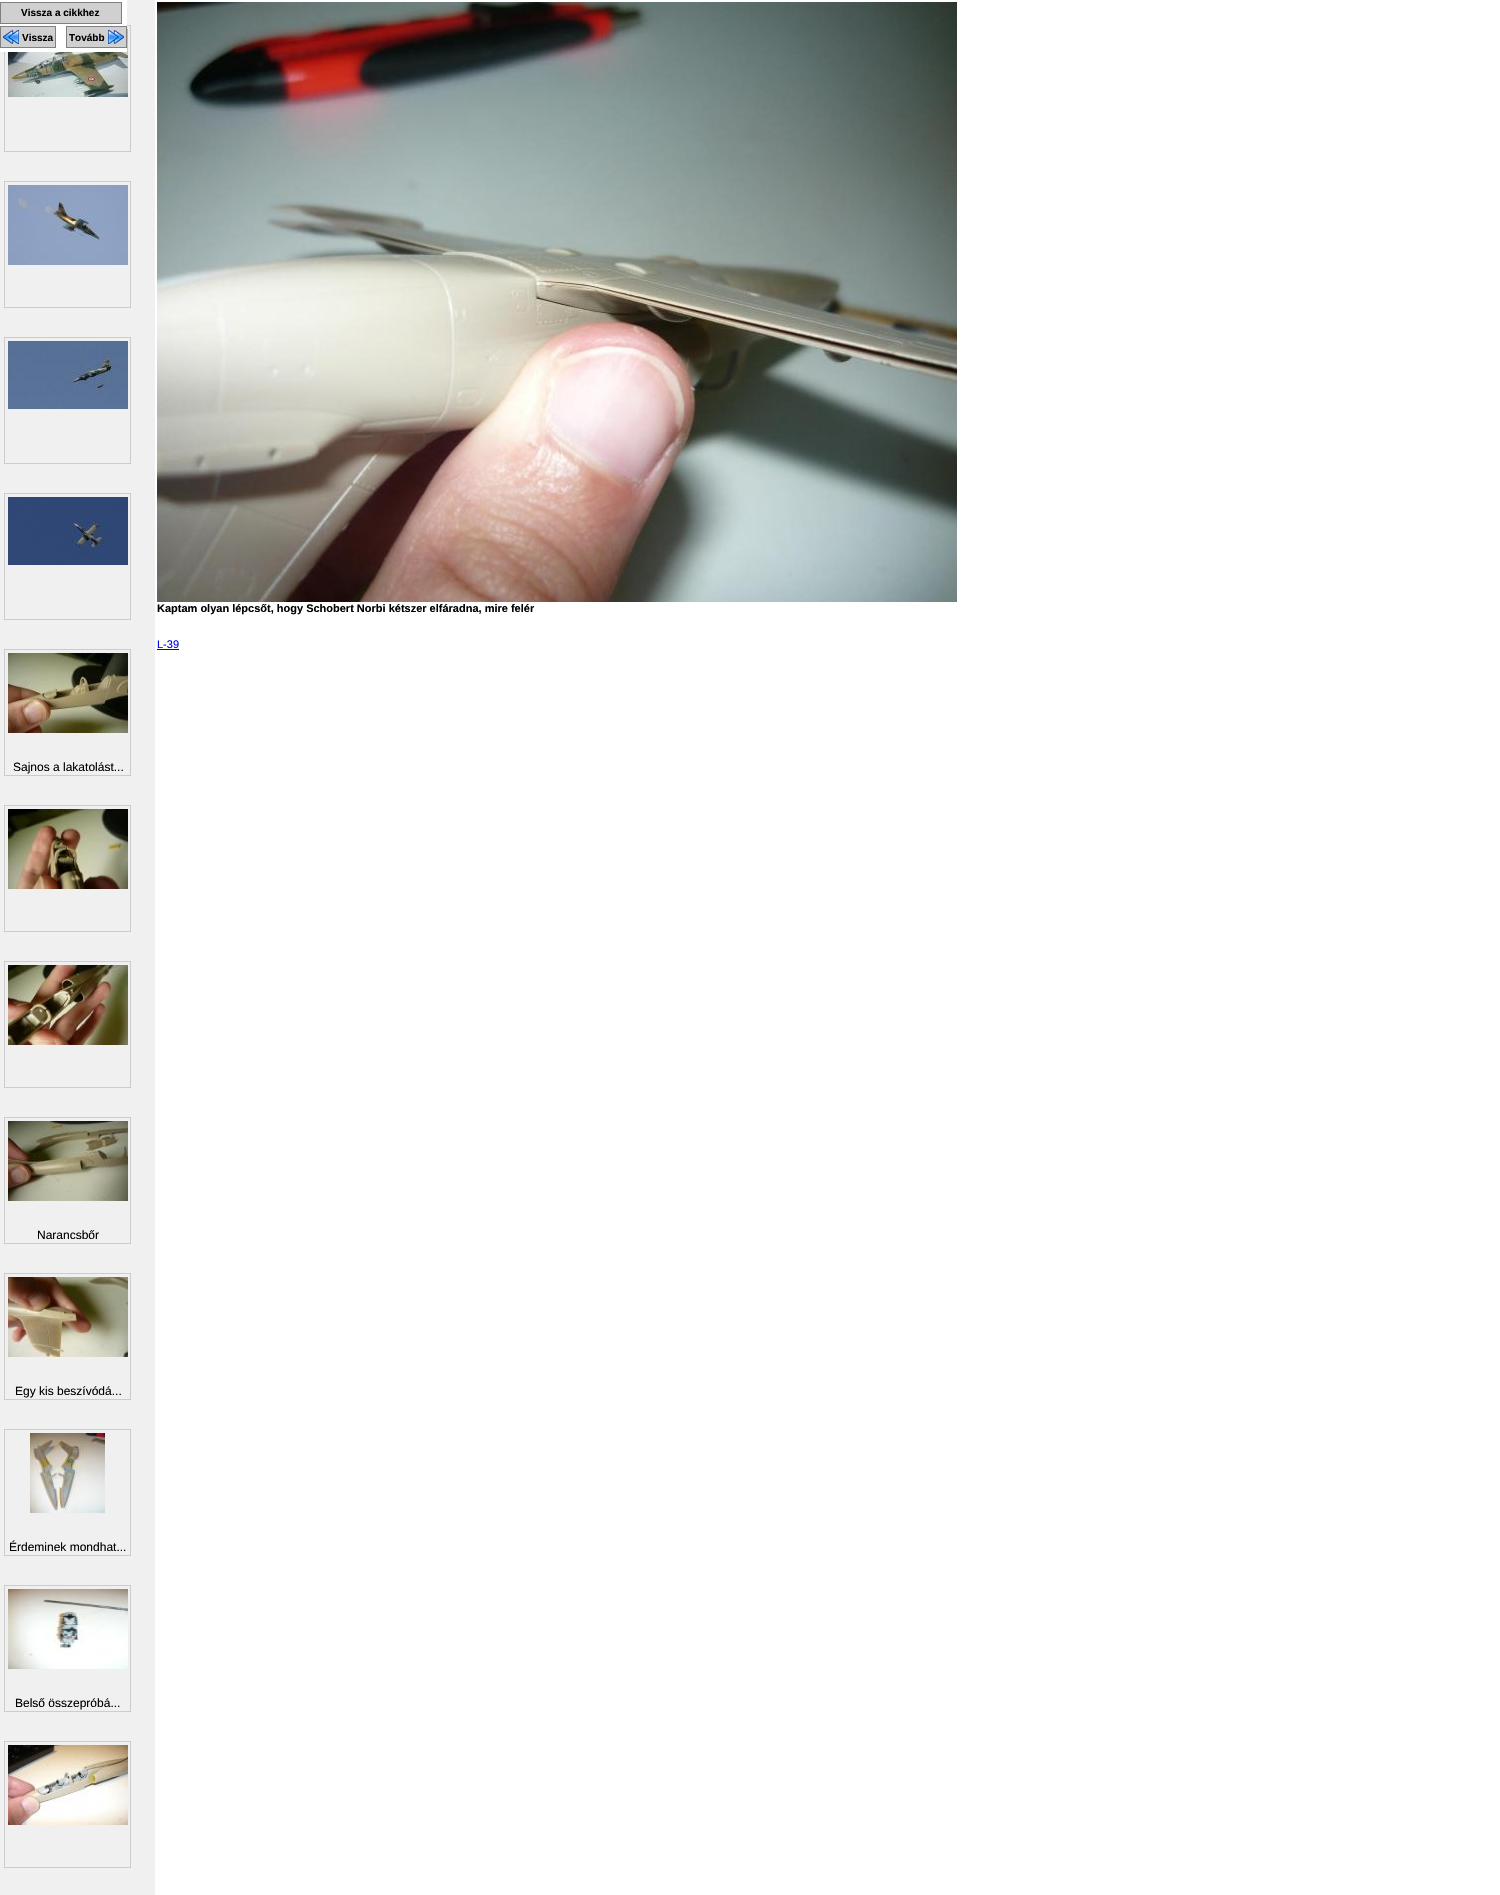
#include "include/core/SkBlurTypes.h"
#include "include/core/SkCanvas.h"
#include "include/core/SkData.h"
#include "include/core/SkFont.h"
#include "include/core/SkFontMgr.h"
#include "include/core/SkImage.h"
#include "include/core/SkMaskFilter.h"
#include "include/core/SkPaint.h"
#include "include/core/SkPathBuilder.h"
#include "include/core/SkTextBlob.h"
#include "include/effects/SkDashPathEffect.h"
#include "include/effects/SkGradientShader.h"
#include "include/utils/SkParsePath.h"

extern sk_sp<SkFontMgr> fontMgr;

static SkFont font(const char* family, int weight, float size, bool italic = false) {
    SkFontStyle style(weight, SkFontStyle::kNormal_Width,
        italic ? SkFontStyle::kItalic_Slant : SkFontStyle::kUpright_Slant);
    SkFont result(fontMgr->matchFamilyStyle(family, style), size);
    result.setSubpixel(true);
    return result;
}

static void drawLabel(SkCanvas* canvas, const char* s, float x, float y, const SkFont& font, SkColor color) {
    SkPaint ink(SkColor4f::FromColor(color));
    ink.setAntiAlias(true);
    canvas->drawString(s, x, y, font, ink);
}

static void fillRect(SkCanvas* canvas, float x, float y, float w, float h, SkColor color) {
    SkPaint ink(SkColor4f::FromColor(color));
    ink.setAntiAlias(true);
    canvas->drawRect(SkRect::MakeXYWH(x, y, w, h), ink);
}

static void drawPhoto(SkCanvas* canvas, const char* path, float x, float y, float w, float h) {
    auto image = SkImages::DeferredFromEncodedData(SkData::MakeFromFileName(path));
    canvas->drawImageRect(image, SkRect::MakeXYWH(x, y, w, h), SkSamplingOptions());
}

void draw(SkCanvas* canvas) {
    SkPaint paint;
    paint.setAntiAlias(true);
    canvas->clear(0xFFFFFFFF);
    fillRect(canvas, 0, 0, 155, 1895, 0xFFF0F0F0);
    paint.setStroke(true);
    paint.setStrokeWidth(1);
    paint.setColor(0xFFCCCCCC);
    canvas->drawRect(SkRect::MakeXYWH(4.5f, 25.5f, 126, 126), paint);
    drawPhoto(canvas, "assets/img4.png", 8, 29, 120, 68);
    fillRect(canvas, 0, 0, 127, 52, 0xFFFFFFFF);
    paint.setStroke(false);
    paint.setColor(0xFFD0D0D0);
    canvas->drawRect(SkRect::MakeXYWH(0.5f, 2.5f, 121, 21), paint);
    paint.setStroke(true);
    paint.setColor(0xFF808080);
    canvas->drawRect(SkRect::MakeXYWH(0.5f, 2.5f, 121, 21), paint);
    SkFont font1 = font("Liberation Sans", 700, 10);
    drawLabel(canvas, "Vissza a cikkhez", 21, 16, font1, 0xFF000000);
    paint.setStroke(false);
    paint.setColor(0xFFD0D0D0);
    canvas->drawRect(SkRect::MakeXYWH(0.5f, 26.5f, 55, 21), paint);
    paint.setStroke(true);
    paint.setColor(0xFF808080);
    canvas->drawRect(SkRect::MakeXYWH(0.5f, 26.5f, 55, 21), paint);
    drawPhoto(canvas, "assets/img1.png", 3, 30, 16, 14);
    drawLabel(canvas, "Vissza", 22, 41, font1, 0xFF000000);
    paint.setStroke(false);
    paint.setColor(0xFFD0D0D0);
    canvas->drawRect(SkRect::MakeXYWH(66.5f, 26.5f, 60, 21), paint);
    paint.setStroke(true);
    paint.setColor(0xFF808080);
    canvas->drawRect(SkRect::MakeXYWH(66.5f, 26.5f, 60, 21), paint);
    drawLabel(canvas, "Tovább", 69, 41, font1, 0xFF000000);
    drawPhoto(canvas, "assets/img2.png", 108, 30, 16, 14);
    drawPhoto(canvas, "assets/img3.png", 157, 2, 800, 600);
    SkFont font2 = font("Liberation Sans", 700, 11);
    drawLabel(canvas, "Kaptam olyan lépcsőt, hogy Schobert Norbi kétszer elfáradna, mire felér", 157, 612, font2, 0xFF000000);
    SkFont font3 = font("Liberation Sans", 400, 11);
    drawLabel(canvas, "L-39", 157, 648, font3, 0xFF0000EE);
    fillRect(canvas, 157, 649, 22, 1, 0xFF0000EE);
    paint.setColor(0xFFCCCCCC);
    canvas->drawRect(SkRect::MakeXYWH(4.5f, 181.5f, 126, 126), paint);
    drawPhoto(canvas, "assets/img5.png", 8, 185, 120, 80);
    canvas->drawRect(SkRect::MakeXYWH(4.5f, 337.5f, 126, 126), paint);
    drawPhoto(canvas, "assets/img6.png", 8, 341, 120, 68);
    canvas->drawRect(SkRect::MakeXYWH(4.5f, 493.5f, 126, 126), paint);
    drawPhoto(canvas, "assets/img7.png", 8, 497, 120, 68);
    canvas->drawRect(SkRect::MakeXYWH(4.5f, 649.5f, 126, 126), paint);
    drawPhoto(canvas, "assets/img8.png", 8, 653, 120, 80);
    SkFont font4 = font("Liberation Sans", 400, 12);
    drawLabel(canvas, "Sajnos a lakatolást...", 13, 771, font4, 0xFF000000);
    canvas->drawRect(SkRect::MakeXYWH(4.5f, 805.5f, 126, 126), paint);
    drawPhoto(canvas, "assets/img9.png", 8, 809, 120, 80);
    canvas->drawRect(SkRect::MakeXYWH(4.5f, 961.5f, 126, 126), paint);
    drawPhoto(canvas, "assets/img10.png", 8, 965, 120, 80);
    canvas->drawRect(SkRect::MakeXYWH(4.5f, 1117.5f, 126, 126), paint);
    drawPhoto(canvas, "assets/img11.png", 8, 1121, 120, 80);
    drawLabel(canvas, "Narancsbőr", 37, 1239, font4, 0xFF000000);
    canvas->drawRect(SkRect::MakeXYWH(4.5f, 1273.5f, 126, 126), paint);
    drawPhoto(canvas, "assets/img12.png", 8, 1277, 120, 80);
    drawLabel(canvas, "Egy kis beszívódá...", 15, 1395, font4, 0xFF000000);
    canvas->drawRect(SkRect::MakeXYWH(4.5f, 1429.5f, 126, 126), paint);
    drawPhoto(canvas, "assets/img13.png", 30, 1433, 75, 80);
    drawLabel(canvas, "Érdeminek mondhat...", 9, 1551, font4, 0xFF000000);
    canvas->drawRect(SkRect::MakeXYWH(4.5f, 1585.5f, 126, 126), paint);
    drawPhoto(canvas, "assets/img14.png", 8, 1589, 120, 80);
    drawLabel(canvas, "Belső összepróbá...", 15, 1707, font4, 0xFF000000);
    canvas->drawRect(SkRect::MakeXYWH(4.5f, 1741.5f, 126, 126), paint);
    drawPhoto(canvas, "assets/img15.png", 8, 1745, 120, 80);
}
